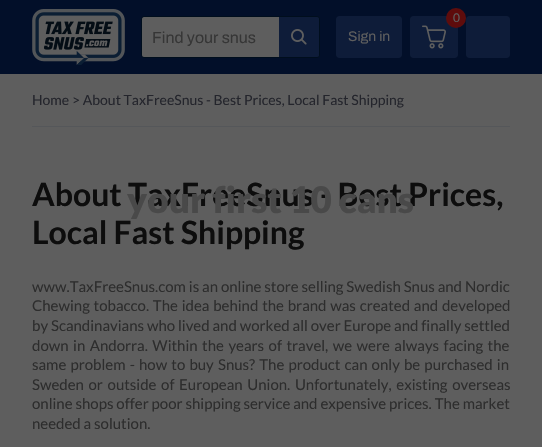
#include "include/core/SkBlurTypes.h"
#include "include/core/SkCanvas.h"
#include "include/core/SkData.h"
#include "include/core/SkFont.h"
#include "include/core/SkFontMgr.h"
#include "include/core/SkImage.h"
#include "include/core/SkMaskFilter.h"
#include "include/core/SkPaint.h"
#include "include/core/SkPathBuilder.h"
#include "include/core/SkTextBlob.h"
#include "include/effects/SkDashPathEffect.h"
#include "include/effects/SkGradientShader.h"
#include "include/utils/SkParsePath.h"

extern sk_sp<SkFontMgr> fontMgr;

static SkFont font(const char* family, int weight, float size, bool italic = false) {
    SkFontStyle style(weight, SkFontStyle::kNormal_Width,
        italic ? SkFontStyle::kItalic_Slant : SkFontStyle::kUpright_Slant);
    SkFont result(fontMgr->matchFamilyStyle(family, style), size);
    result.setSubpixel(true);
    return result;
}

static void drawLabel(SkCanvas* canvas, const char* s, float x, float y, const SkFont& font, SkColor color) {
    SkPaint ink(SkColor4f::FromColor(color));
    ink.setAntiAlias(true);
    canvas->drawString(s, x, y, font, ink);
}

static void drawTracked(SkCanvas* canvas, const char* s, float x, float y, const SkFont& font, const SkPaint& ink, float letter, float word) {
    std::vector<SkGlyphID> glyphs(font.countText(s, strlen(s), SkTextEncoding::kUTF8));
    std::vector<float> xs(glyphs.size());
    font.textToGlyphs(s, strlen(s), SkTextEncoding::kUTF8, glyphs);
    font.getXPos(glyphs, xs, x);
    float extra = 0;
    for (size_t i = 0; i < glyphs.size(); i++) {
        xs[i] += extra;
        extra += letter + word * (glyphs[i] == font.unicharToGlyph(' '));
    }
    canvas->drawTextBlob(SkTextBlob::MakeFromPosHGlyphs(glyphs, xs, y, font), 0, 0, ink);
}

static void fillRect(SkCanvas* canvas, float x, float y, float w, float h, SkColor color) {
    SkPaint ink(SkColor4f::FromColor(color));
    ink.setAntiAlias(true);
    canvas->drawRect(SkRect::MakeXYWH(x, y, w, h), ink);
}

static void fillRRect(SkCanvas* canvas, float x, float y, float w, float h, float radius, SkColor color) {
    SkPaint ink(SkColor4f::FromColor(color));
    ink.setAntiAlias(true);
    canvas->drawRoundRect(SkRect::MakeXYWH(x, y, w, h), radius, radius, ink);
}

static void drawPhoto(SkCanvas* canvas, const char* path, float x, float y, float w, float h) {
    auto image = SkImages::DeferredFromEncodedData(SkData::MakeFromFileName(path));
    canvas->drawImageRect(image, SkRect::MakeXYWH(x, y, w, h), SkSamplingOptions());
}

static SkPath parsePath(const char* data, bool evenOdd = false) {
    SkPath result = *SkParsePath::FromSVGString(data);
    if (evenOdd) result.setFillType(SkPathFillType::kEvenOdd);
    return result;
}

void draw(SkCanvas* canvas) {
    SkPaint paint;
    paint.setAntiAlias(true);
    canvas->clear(0xFF5E5E5E);
    fillRect(canvas, 0, 0, 542, 74, 0xFF020F29);
    drawPhoto(canvas, "assets/img1.png", 32, 9, 93, 56);
    paint.setStroke(true);
    paint.setStrokeWidth(1);
    paint.setColor(0xFF000E1D);
    canvas->drawRoundRect(SkRect::MakeXYWH(141.5f, 16.5f, 178, 41), 2.5f, 2.5f, paint);
    paint.setStroke(false);
    paint.setColor(0xFF5E5E5E);
    canvas->drawPath(parsePath("M144 17H279V57H144C143 57 142 56 142 55V19C142 18 143 17 144 17Z"), paint);
    SkFont font1 = font("Archivo", 400, 16);
    drawLabel(canvas, "Find your snus", 152, 43, font1, 0xFF363636);
    paint.setColor(0xFF0E1C39);
    canvas->drawPath(parsePath("M279 17H317C318 17 319 18 319 19V55C319 56 318 57 317 57H279Z"), paint);
    drawPhoto(canvas, "assets/img2.png", 291, 29, 16, 16);
    fillRRect(canvas, 336, 16, 66, 42, 4, 0xFF0E1C39);
    SkFont font2 = font("Archivo", 400, 14);
    drawLabel(canvas, "Sign in", 348, 41, font2, 0xFF5E5E5E);
    fillRRect(canvas, 410, 16, 48, 42, 4, 0xFF0E1C39);
    paint.setColor(0xFF5E0C0C);
    canvas->drawCircle(456, 18, 10, paint);
    SkFont font3 = font("Lato", 400, 12);
    drawLabel(canvas, "0", 453, 22, font3, 0xFF5E5E5E);
    drawPhoto(canvas, "assets/img3.png", 422, 25, 24, 24);
    fillRRect(canvas, 466, 16, 44, 42, 4, 0xFF0E1C39);
    fillRect(canvas, 32, 126, 478, 1, 0xFF55575A);
    SkFont font4 = font("Lato", 400, 14);
    drawLabel(canvas, "Home > About TaxFreeSnus - Best Prices, Local Fast Shipping", 32, 105, font4, 0xFF24252C);
    SkFont font5 = font("Lato", 700, 32);
    drawLabel(canvas, "About TaxFreeSnus - Best Prices,", 32, 206, font5, 0xFF0D0D0D);
    drawLabel(canvas, "Local Fast Shipping", 32, 244, font5, 0xFF0D0D0D);
    SkFont font6 = font("Lato", 400, 15);
    drawLabel(canvas, "www.TaxFreeSnus.com is an online store selling Swedish Snus and Nordic", 32, 292, font6, 0xFF2D2D2D);
    paint.setColor(0xFF2D2D2D);
    drawTracked(canvas, "Chewing tobacco. The idea behind the brand was created and developed", 32, 311, font6, paint, 0, 0.9f);
    drawLabel(canvas, "by Scandinavians who lived and worked all over Europe and finally settled", 32, 331, font6, 0xFF2D2D2D);
    drawTracked(canvas, "down in Andorra. Within the years of travel, we were always facing the", 32, 351, font6, paint, 0, 1.6f);
    drawTracked(canvas, "same problem - how to buy Snus? The product can only be purchased in", 32, 370, font6, paint, 0, 1.25f);
    drawTracked(canvas, "Sweden or outside of European Union. Unfortunately, existing overseas", 32, 390, font6, paint, 0, 1.75f);
    drawLabel(canvas, "online shops offer poor shipping service and expensive prices. The market", 32, 409, font6, 0xFF2D2D2D);
    drawLabel(canvas, "needed a solution.", 32, 429, font6, 0xFF2D2D2D);
    SkFont font7 = font("Lato", 900, 36.75f);
    drawLabel(canvas, "your first 10 cans", 127, 213, font7, 0xFF494949);
    paint.setStroke(true);
    paint.setStrokeWidth(1.2f);
    paint.setStrokeCap(SkPaint::kRound_Cap);
    paint.setStrokeJoin(SkPaint::kRound_Join);
    paint.setColor(0xFF5E5E5E);
    canvas->drawPath(parsePath("M277 369.5L281.5 374L288.5 363.5"), paint);
}
